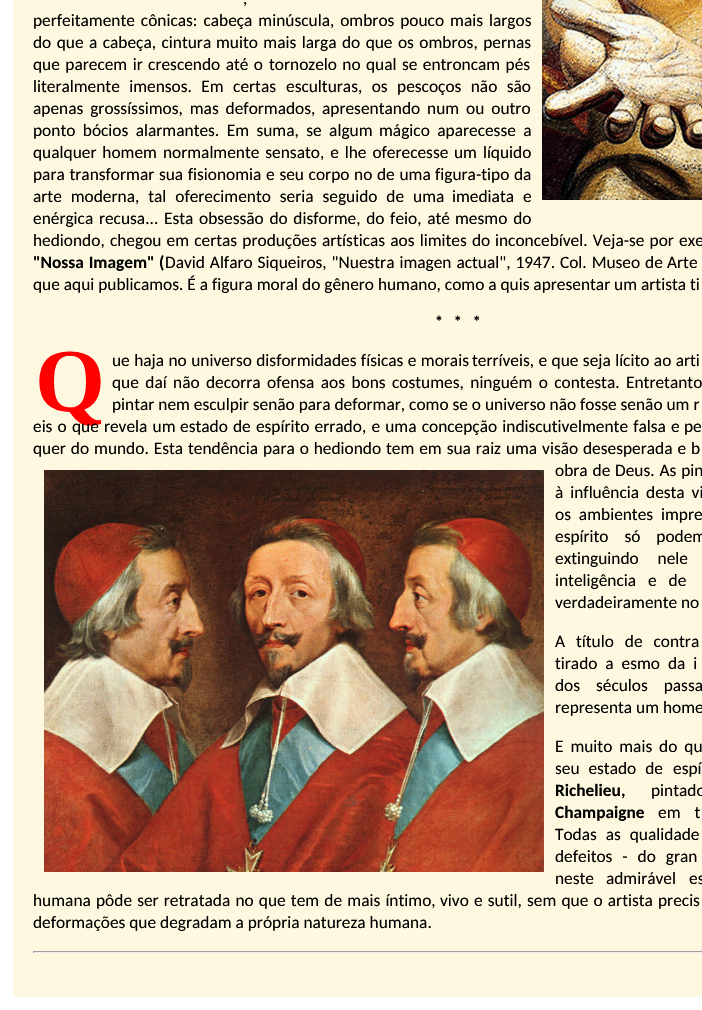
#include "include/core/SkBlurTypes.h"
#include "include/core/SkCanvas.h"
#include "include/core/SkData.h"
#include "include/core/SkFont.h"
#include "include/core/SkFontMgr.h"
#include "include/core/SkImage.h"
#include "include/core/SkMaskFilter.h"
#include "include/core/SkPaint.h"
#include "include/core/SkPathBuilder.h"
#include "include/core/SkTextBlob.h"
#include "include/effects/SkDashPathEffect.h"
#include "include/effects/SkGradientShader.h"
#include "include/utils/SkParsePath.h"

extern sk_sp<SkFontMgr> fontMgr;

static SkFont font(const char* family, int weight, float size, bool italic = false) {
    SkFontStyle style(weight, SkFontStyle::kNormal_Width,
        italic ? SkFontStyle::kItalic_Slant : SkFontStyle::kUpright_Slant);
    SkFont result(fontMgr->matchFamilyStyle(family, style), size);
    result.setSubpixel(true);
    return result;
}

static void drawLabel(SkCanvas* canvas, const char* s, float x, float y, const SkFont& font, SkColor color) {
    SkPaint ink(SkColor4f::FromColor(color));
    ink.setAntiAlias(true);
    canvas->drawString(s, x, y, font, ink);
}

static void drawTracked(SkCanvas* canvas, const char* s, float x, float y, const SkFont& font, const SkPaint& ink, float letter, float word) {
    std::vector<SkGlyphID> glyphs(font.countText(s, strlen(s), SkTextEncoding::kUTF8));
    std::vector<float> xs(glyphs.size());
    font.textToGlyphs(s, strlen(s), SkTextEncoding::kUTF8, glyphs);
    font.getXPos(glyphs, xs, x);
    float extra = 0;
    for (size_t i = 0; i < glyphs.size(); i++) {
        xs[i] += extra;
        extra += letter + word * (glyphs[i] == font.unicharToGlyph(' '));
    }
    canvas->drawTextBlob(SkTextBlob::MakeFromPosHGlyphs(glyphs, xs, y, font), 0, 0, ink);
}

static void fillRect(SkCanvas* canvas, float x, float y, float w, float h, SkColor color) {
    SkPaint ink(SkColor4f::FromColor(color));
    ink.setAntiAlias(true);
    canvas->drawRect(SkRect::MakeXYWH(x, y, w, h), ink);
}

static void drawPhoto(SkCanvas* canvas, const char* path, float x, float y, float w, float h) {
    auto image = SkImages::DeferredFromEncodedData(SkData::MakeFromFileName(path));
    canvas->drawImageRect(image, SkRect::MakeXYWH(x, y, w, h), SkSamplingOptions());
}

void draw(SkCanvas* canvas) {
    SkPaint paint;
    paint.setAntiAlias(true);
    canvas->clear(0xFFFFFFFF);
    fillRect(canvas, 13, 0, 689, 997, 0xFFFFF8E0);
    SkFont font1 = font("Carlito", 400, 17.35f);
    paint.setColor(0xFF000000);
    drawTracked(canvas, ",", 243, 4, font1, paint, 0, 1);
    drawPhoto(canvas, "assets/img1.png", 542, 0, 160, 200);
    drawTracked(canvas, "perfeitamente cônicas: cabeça minúscula, ombros pouco mais", 33, 26, font1, paint, 0, 2);
    drawLabel(canvas, "largos", 489, 26, font1, 0xFF000000);
    drawTracked(canvas, "do que a cabeça, cintura", 33, 48, font1, paint, 0, 1.5f);
    drawTracked(canvas, "muito mais larga do que os ombros, pernas", 216, 48, font1, paint, 0, 1.5f);
    drawTracked(canvas, "que parecem ir crescendo até o", 33, 70, font1, paint, 0, 1.5f);
    drawTracked(canvas, "tornozelo no qual se entroncam pés", 269, 70, font1, paint, 0, 1.5f);
    drawTracked(canvas, "literalmente imensos. Em certas", 33, 92, font1, paint, 0, 5.5f);
    drawTracked(canvas, "esculturas, os pescoços não são", 286, 92, font1, paint, 0, 5.5f);
    drawTracked(canvas, "apenas grossíssimos, mas deformados,", 33, 114, font1, paint, 0, 3);
    drawTracked(canvas, "apresentando num ou outro", 322, 114, font1, paint, 0, 3);
    drawTracked(canvas, "ponto bócios alarmantes. Em suma, se algum", 33, 136, font1, paint, 0, 3.5f);
    drawTracked(canvas, "mágico aparecesse a", 379, 136, font1, paint, 0, 3.5f);
    drawTracked(canvas, "qualquer homem normalmente sensato, e lhe oferecesse", 33, 158, font1, paint, 0, 2);
    drawTracked(canvas, "um líquido", 454, 158, font1, paint, 0, 2);
    drawTracked(canvas, "para transformar sua fisionomia e seu corpo no de uma", 33, 180, font1, paint, 0, 0.75f);
    drawTracked(canvas, "figura-tipo da", 435, 180, font1, paint, 0, 0.75f);
    drawTracked(canvas, "arte moderna, tal oferecimento seria seguido de uma", 33, 202, font1, paint, 0, 5);
    drawTracked(canvas, "imediata e", 452, 202, font1, paint, 0, 5);
    drawTracked(canvas, "enérgica recusa... Esta obsessão do disforme, do feio, até", 33, 224, font1, paint, 0, 1.75f);
    drawTracked(canvas, "mesmo do", 455, 224, font1, paint, 0, 2);
    drawTracked(canvas, "hediondo, chegou em certas produções artísticas aos limites do", 33, 246, font1, paint, 0, 1.25f);
    drawTracked(canvas, "inconcebível. Veja-se por exe", 495, 246, font1, paint, 0, 1.25f);
    SkFont font2 = font("Carlito", 700, 17.35f);
    drawTracked(canvas, "\"Nossa Imagem\"", 33, 268, font2, paint, 0, 1);
    drawLabel(canvas, "(", 159, 268, font2, 0xFF000000);
    drawTracked(canvas, "David Alfaro Siqueiros, \"Nuestra imagen actual\", 1947. Col. Museo de", 165, 268, font1, paint, 0, 1);
    drawTracked(canvas, "Arte", 667, 268, font1, paint, 0, 1);
    drawLabel(canvas, "que aqui publicamos. É a figura moral do gênero humano, como a quis apresentar um artista ti", 33, 290, font1, 0xFF000000);
    SkFont font3 = font("Carlito", 700, 16);
    drawLabel(canvas, "*   *   *", 435, 327, font3, 0xFF000000);
    SkFont font4 = font("Liberation Serif", 700, 90);
    drawLabel(canvas, "Q", 35, 411, font4, 0xFFFF0000);
    drawTracked(canvas, "ue haja no universo disformidades físicas e morais", 112, 366, font1, paint, 0, 0.5f);
    drawTracked(canvas, "terríveis, e que seja lícito ao arti", 472, 366, font1, paint, 0, 0.5f);
    drawTracked(canvas, "que daí não", 112, 388, font1, paint, 0, 2.5f);
    drawTracked(canvas, "decorra ofensa aos bons costumes, ninguém o contesta. Entretanto", 206, 388, font1, paint, 0, 2.5f);
    drawLabel(canvas, "pintar nem esculpir senão para deformar, como se o universo não fosse senão um r", 112, 410, font1, 0xFF000000);
    drawTracked(canvas, "eis o que revela um", 33, 432, font1, paint, 0, 1.25f);
    drawTracked(canvas, "estado de espírito errado, e uma concepção indiscutivelmente falsa e", 180, 432, font1, paint, 0, 1.25f);
    drawTracked(canvas, "pe", 684, 432, font1, paint, 0, 1.25f);
    drawTracked(canvas, "quer do mundo. Esta tendência para o hediondo", 33, 454, font1, paint, 0, 1);
    drawTracked(canvas, "tem em sua raiz uma visão", 386, 454, font1, paint, 0, 1);
    drawTracked(canvas, "desesperada e b", 583, 454, font1, paint, 0, 1);
    drawPhoto(canvas, "assets/img2.png", 44, 470, 500, 402);
    drawTracked(canvas, "obra de", 555, 476, font1, paint, 0, 1);
    drawTracked(canvas, "Deus. As pin", 615, 476, font1, paint, 0, 1);
    drawTracked(canvas, "à influência desta vi", 555, 498, font1, paint, 0, 3);
    drawTracked(canvas, "os ambientes impre", 555, 520, font1, paint, 0, 4);
    drawTracked(canvas, "espírito só podem", 555, 542, font1, paint, 0, 12);
    drawTracked(canvas, "extinguindo nele", 555, 564, font1, paint, 0, 15);
    drawTracked(canvas, "inteligência e de", 555, 586, font1, paint, 0, 8);
    drawLabel(canvas, "verdadeiramente no", 555, 608, font1, 0xFF000000);
    drawLabel(canvas, "A", 555, 647, font1, 0xFF000000);
    drawTracked(canvas, "título de contra", 576, 647, font1, paint, 0, 7);
    drawTracked(canvas, "tirado a esmo da i", 555, 669, font1, paint, 0, 4);
    drawTracked(canvas, "dos séculos passa", 555, 691, font1, paint, 0, 12);
    drawLabel(canvas, "representa um home", 555, 713, font1, 0xFF000000);
    drawTracked(canvas, "E muito mais do qu", 555, 752, font1, paint, 0, 3);
    drawTracked(canvas, "seu estado de", 555, 774, font1, paint, 0, 5);
    drawTracked(canvas, "espí", 673, 774, font1, paint, 0, 5);
    drawLabel(canvas, "Richelieu,", 555, 796, font2, 0xFF000000);
    drawTracked(canvas, "pintado", 651, 796, font1, paint, 0, 22);
    drawLabel(canvas, "Champaigne", 555, 818, font2, 0xFF000000);
    drawTracked(canvas, "em t", 658, 818, font1, paint, 0, 10);
    drawTracked(canvas, "Todas as qualidade", 555, 840, font1, paint, 0, 5);
    drawTracked(canvas, "defeitos - do gran", 555, 862, font1, paint, 0, 6);
    drawTracked(canvas, "neste admirável", 555, 884, font1, paint, 0, 8);
    drawTracked(canvas, "es", 689, 884, font1, paint, 0, 8);
    drawTracked(canvas, "humana pôde ser retratada no que tem de mais íntimo,", 33, 906, font1, paint, 0, 1.25f);
    drawTracked(canvas, "vivo e sutil, sem que o artista precis", 440, 906, font1, paint, 0, 1.25f);
    drawLabel(canvas, "deformações que degradam a própria natureza humana.", 33, 928, font1, 0xFF000000);
    fillRect(canvas, 33, 951, 669, 1, 0xFF9F9F9F);
    fillRect(canvas, 33, 952, 669, 1, 0xFFEEEEEE);
    fillRect(canvas, 33, 951, 1, 2, 0xFF9F9F9F);
}
